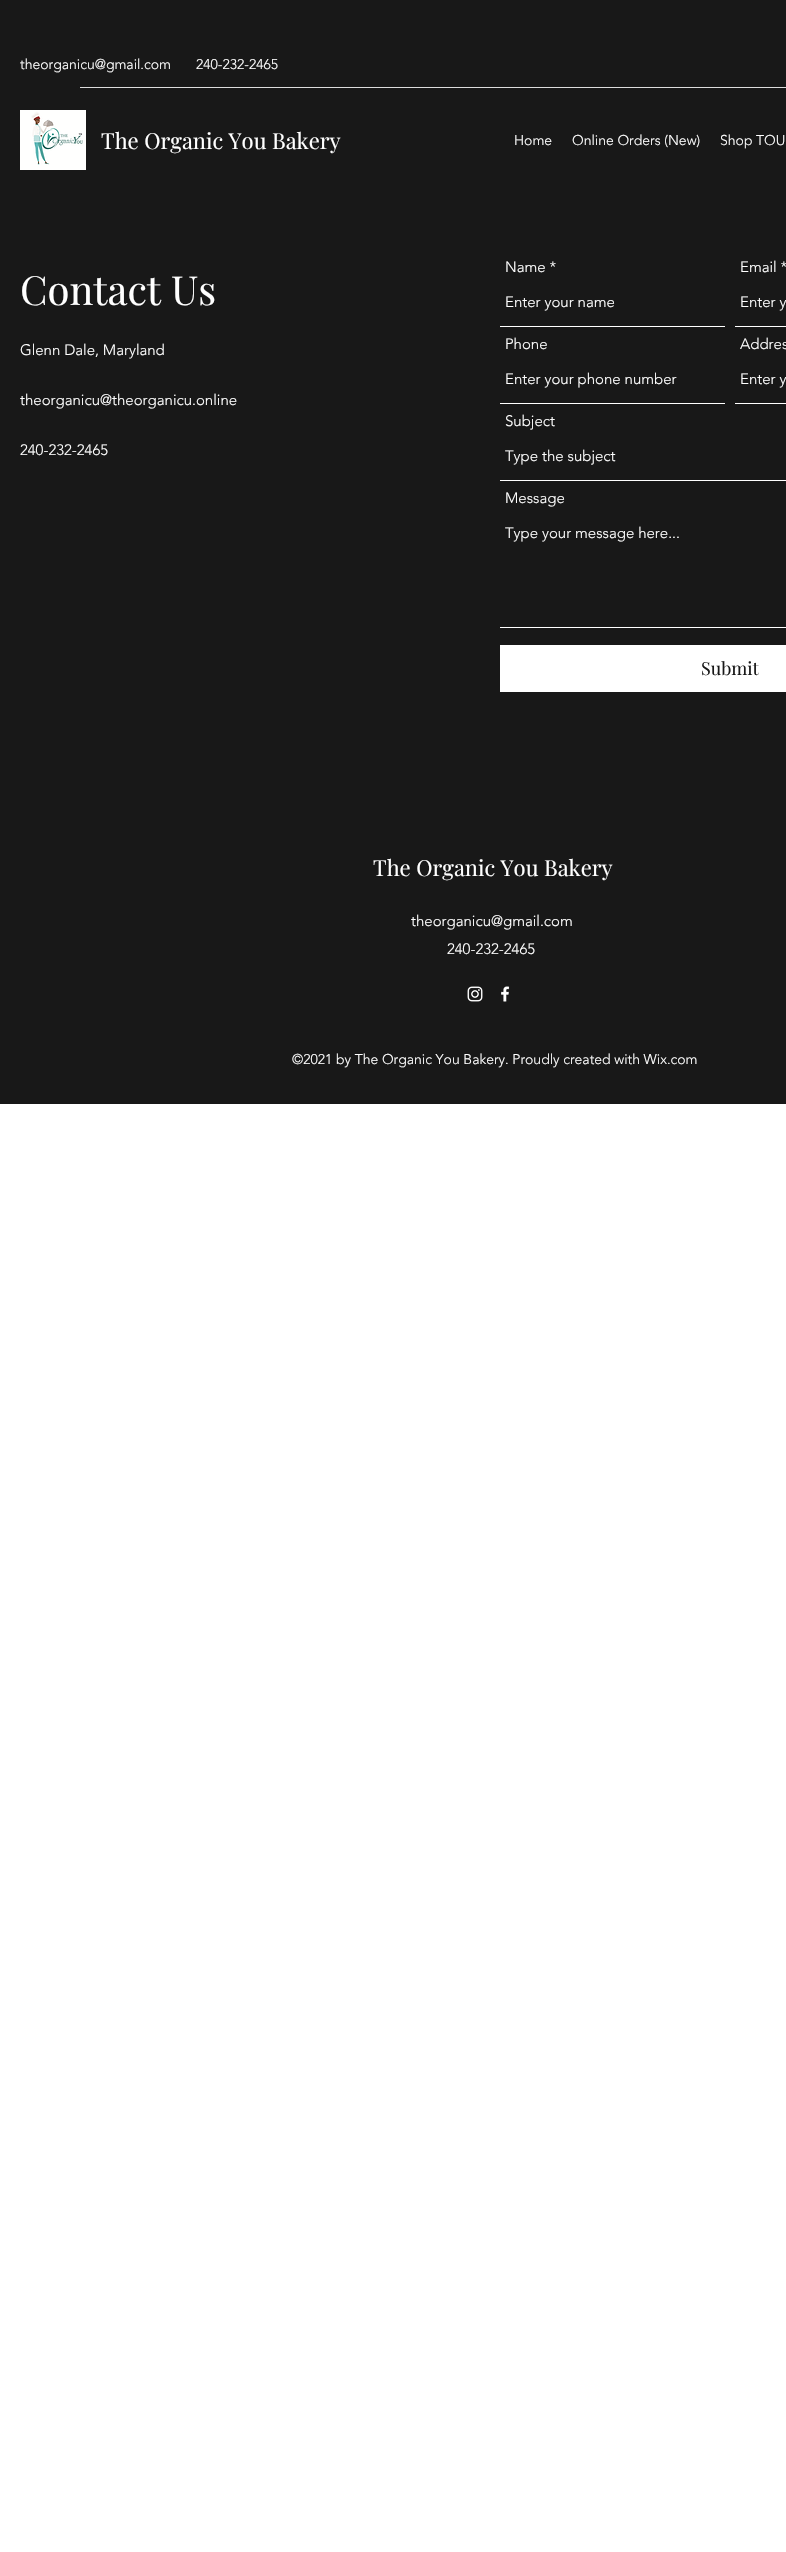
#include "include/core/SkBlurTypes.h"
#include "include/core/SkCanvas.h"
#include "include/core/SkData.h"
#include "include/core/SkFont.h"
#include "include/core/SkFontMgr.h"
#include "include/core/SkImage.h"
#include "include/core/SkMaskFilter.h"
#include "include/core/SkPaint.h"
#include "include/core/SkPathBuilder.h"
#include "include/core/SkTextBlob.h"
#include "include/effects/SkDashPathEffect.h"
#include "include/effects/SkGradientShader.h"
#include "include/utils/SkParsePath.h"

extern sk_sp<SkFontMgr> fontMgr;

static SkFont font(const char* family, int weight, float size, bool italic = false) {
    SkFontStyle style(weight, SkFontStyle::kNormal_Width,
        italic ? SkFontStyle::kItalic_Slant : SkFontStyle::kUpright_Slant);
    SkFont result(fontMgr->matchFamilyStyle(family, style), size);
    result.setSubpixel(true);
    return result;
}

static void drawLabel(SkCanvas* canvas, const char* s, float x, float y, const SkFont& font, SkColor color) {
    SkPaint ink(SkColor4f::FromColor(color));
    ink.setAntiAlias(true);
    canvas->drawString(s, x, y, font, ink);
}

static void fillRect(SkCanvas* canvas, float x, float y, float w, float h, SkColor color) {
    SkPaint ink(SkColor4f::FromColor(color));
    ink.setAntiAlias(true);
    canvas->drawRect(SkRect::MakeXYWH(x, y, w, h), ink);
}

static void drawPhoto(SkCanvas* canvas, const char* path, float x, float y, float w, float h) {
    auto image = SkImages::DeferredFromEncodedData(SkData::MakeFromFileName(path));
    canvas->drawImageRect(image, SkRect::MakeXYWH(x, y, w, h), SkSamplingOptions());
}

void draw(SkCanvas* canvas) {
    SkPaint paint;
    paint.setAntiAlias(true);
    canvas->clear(0xFFFFFFFF);
    fillRect(canvas, 0, 0, 786, 1104, 0xFF181818);
    SkFont font1 = font("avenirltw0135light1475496", 300, 14);
    drawLabel(canvas, "theorganicu@gmail.com", 20, 69, font1, 0xFFFFFFFF);
    drawLabel(canvas, "240-232-2465", 196, 69, font1, 0xFFFFFFFF);
    fillRect(canvas, 80, 87, 706, 1, 0xFFDCDCDC);
    drawPhoto(canvas, "assets/img1.png", 20, 110, 66, 60);
    SkFont font2 = font("Playfair Display", 400, 22);
    drawLabel(canvas, "The Organic You Bakery", 101, 149, font2, 0xFFFFFFFF);
    drawLabel(canvas, "Home", 514, 145, font1, 0xFFFFFFFF);
    drawLabel(canvas, "Online Orders (New)", 572, 145, font1, 0xFFFFFFFF);
    drawLabel(canvas, "Shop TOU", 720, 145, font1, 0xFFFFFFFF);
    SkFont font3 = font("Playfair Display", 400, 40);
    drawLabel(canvas, "Contact Us", 20, 305, font3, 0xFFFFFFFF);
    SkFont font4 = font("avenirltw0135light1475496", 300, 15);
    drawLabel(canvas, "Name *", 505, 272, font4, 0xFFFFFFFF);
    fillRect(canvas, 500, 326, 225, 1, 0xFFFFFFFF);
    drawLabel(canvas, "Enter your name", 505, 307, font4, 0xFFFFFFFF);
    drawLabel(canvas, "Email *", 740, 272, font4, 0xFFFFFFFF);
    fillRect(canvas, 735, 326, 51, 1, 0xFFFFFFFF);
    drawLabel(canvas, "Enter y", 740, 307, font4, 0xFFFFFFFF);
    drawLabel(canvas, "Phone", 505, 349, font4, 0xFFFFFFFF);
    fillRect(canvas, 500, 403, 225, 1, 0xFFFFFFFF);
    drawLabel(canvas, "Enter your phone number", 505, 384, font4, 0xFFFFFFFF);
    drawLabel(canvas, "Addres", 740, 349, font4, 0xFFFFFFFF);
    fillRect(canvas, 735, 403, 51, 1, 0xFFFFFFFF);
    drawLabel(canvas, "Enter y", 740, 384, font4, 0xFFFFFFFF);
    drawLabel(canvas, "Subject", 505, 426, font4, 0xFFFFFFFF);
    fillRect(canvas, 500, 480, 286, 1, 0xFFFFFFFF);
    drawLabel(canvas, "Type the subject", 505, 461, font4, 0xFFFFFFFF);
    drawLabel(canvas, "Message", 505, 503, font4, 0xFFFFFFFF);
    fillRect(canvas, 500, 627, 286, 1, 0xFFFFFFFF);
    drawLabel(canvas, "Type your message here...", 505, 538, font4, 0xFFFFFFFF);
    fillRect(canvas, 500, 645, 286, 47, 0xFFFFFFFF);
    SkFont font5 = font("Playfair Display", 400, 18);
    drawLabel(canvas, "Submit", 701, 675, font5, 0xFF181818);
    drawLabel(canvas, "Glenn Dale, Maryland", 20, 355, font4, 0xFFFFFFFF);
    drawLabel(canvas, "theorganicu@theorganicu.online", 20, 405, font4, 0xFFFFFFFF);
    drawLabel(canvas, "240-232-2465", 20, 455, font4, 0xFFFFFFFF);
    drawLabel(canvas, "The Organic You Bakery", 373, 876, font2, 0xFFFFFFFF);
    drawLabel(canvas, "theorganicu@gmail.com", 411, 926, font4, 0xFFFFFFFF);
    drawLabel(canvas, "240-232-2465", 447, 954, font4, 0xFFFFFFFF);
    drawPhoto(canvas, "assets/img2.png", 467, 986, 16, 16);
    drawPhoto(canvas, "assets/img3.png", 501, 986, 9, 16);
    drawLabel(canvas, "©2021 by The Organic You Bakery. Proudly created with Wix.com", 292, 1064, font1, 0xFFFFFFFF);
}
